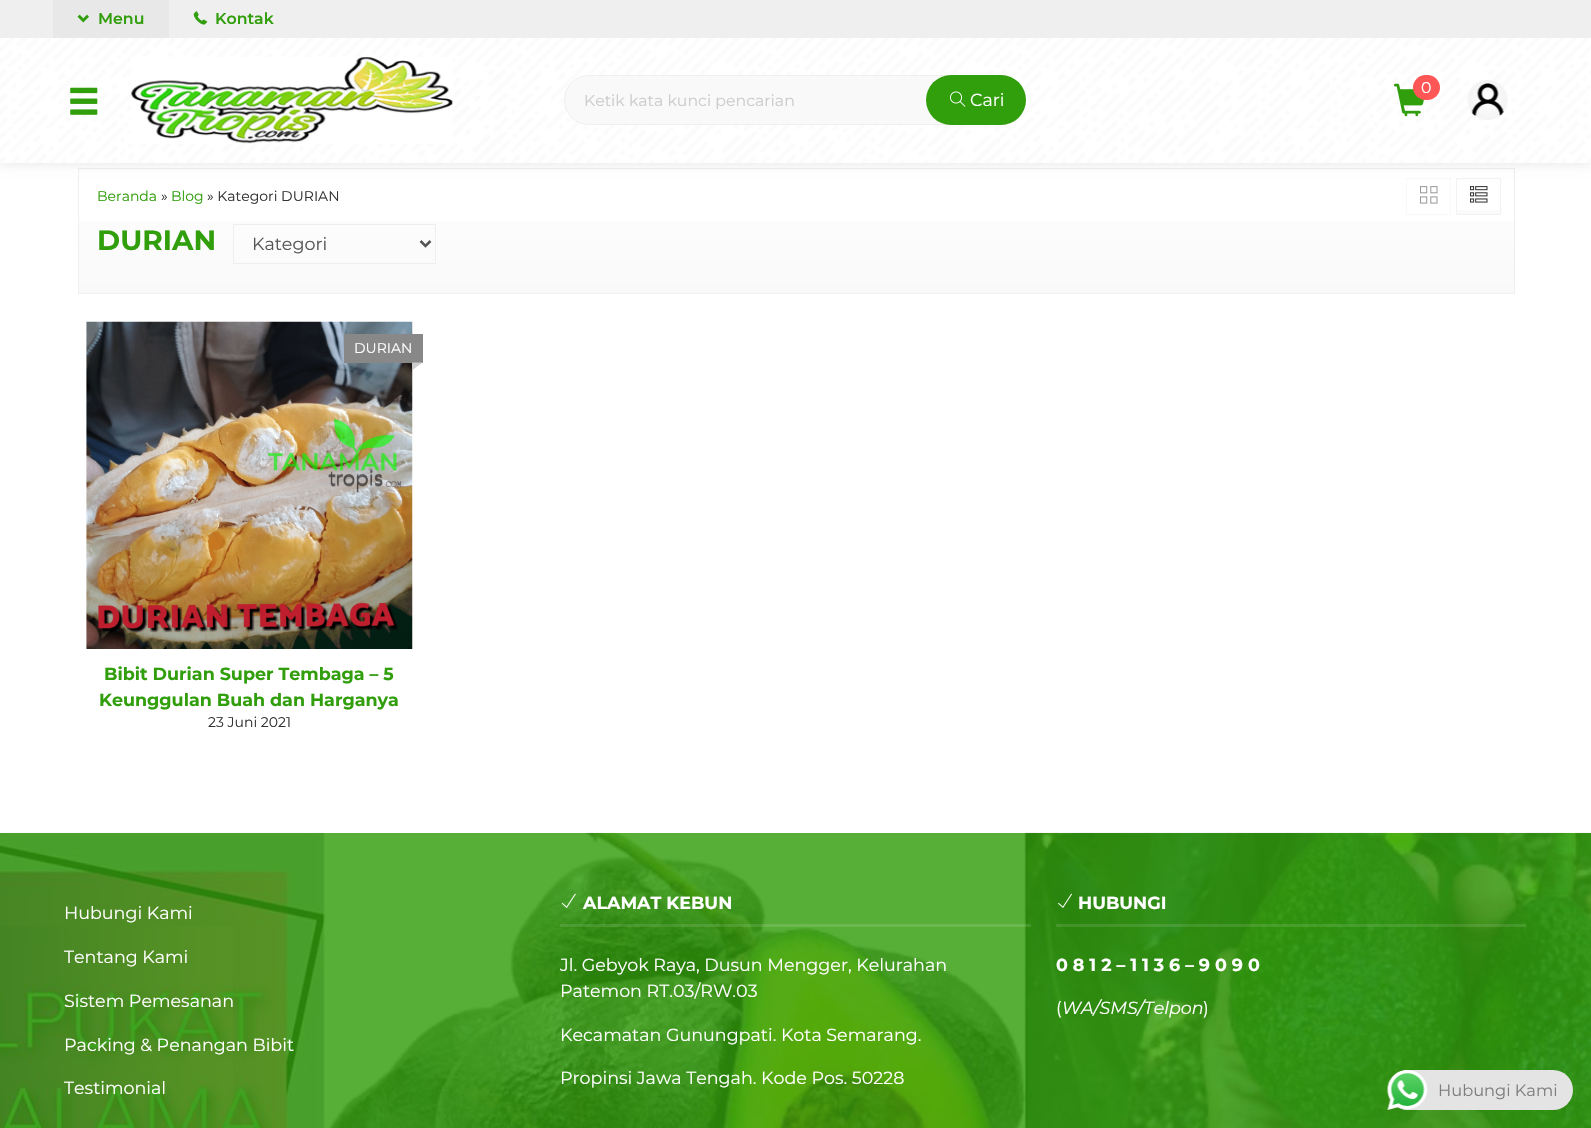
#include "include/core/SkBlurTypes.h"
#include "include/core/SkCanvas.h"
#include "include/core/SkData.h"
#include "include/core/SkFont.h"
#include "include/core/SkFontMgr.h"
#include "include/core/SkImage.h"
#include "include/core/SkMaskFilter.h"
#include "include/core/SkPaint.h"
#include "include/core/SkPathBuilder.h"
#include "include/core/SkTextBlob.h"
#include "include/effects/SkDashPathEffect.h"
#include "include/effects/SkGradientShader.h"
#include "include/utils/SkParsePath.h"

extern sk_sp<SkFontMgr> fontMgr;

static SkFont font(const char* family, int weight, float size, bool italic = false) {
    SkFontStyle style(weight, SkFontStyle::kNormal_Width,
        italic ? SkFontStyle::kItalic_Slant : SkFontStyle::kUpright_Slant);
    SkFont result(fontMgr->matchFamilyStyle(family, style), size);
    result.setSubpixel(true);
    return result;
}

static void drawLabel(SkCanvas* canvas, const char* s, float x, float y, const SkFont& font, SkColor color) {
    SkPaint ink(SkColor4f::FromColor(color));
    ink.setAntiAlias(true);
    canvas->drawString(s, x, y, font, ink);
}

static void fillRect(SkCanvas* canvas, float x, float y, float w, float h, SkColor color) {
    SkPaint ink(SkColor4f::FromColor(color));
    ink.setAntiAlias(true);
    canvas->drawRect(SkRect::MakeXYWH(x, y, w, h), ink);
}

static void fillRRect(SkCanvas* canvas, float x, float y, float w, float h, float radius, SkColor color) {
    SkPaint ink(SkColor4f::FromColor(color));
    ink.setAntiAlias(true);
    canvas->drawRoundRect(SkRect::MakeXYWH(x, y, w, h), radius, radius, ink);
}

static void drawPhoto(SkCanvas* canvas, const char* path, float x, float y, float w, float h) {
    auto image = SkImages::DeferredFromEncodedData(SkData::MakeFromFileName(path));
    canvas->drawImageRect(image, SkRect::MakeXYWH(x, y, w, h), SkSamplingOptions());
}

static SkPath parsePath(const char* data, bool evenOdd = false) {
    SkPath result = *SkParsePath::FromSVGString(data);
    if (evenOdd) result.setFillType(SkPathFillType::kEvenOdd);
    return result;
}

void draw(SkCanvas* canvas) {
    SkPaint paint;
    paint.setAntiAlias(true);
    canvas->clear(0xFFFFFFFF);
    {
        const SkColor colors[] = {0xFFFFFFFF, 0xFFF9F9F9};
        const float stops[] = {0, 1};
        const SkPoint ends[] = {{796, 169}, {796, 293}};
        paint.setShader(SkGradientShader::MakeLinear(ends, colors, stops, 2, SkTileMode::kClamp));
        paint.setAlpha(255);
    }
    canvas->drawRect(SkRect::MakeXYWH(79, 221, 1435, 72), paint);
    paint.setStroke(true);
    paint.setStrokeWidth(1);
    paint.setShader(nullptr);
    paint.setColor(0xFFEFEFEF);
    canvas->drawRect(SkRect::MakeXYWH(78.5f, 168.5f, 1436, 125), paint);
    paint.setColor(0xFFF8F8F8);
    canvas->drawRect(SkRect::MakeXYWH(1406.5f, 178.5f, 44, 36), paint);
    paint.setStroke(false);
    {
        const SkColor colors[] = {0xFFFAFAFA, 0xFFFFFFFF};
        const float stops[] = {0, 1};
        const SkPoint ends[] = {{1479, 214}, {1479, 179}};
        paint.setShader(SkGradientShader::MakeLinear(ends, colors, stops, 2, SkTileMode::kClamp));
        paint.setAlpha(255);
    }
    canvas->drawRect(SkRect::MakeXYWH(1457, 210, 43, 4), paint);
    paint.setStroke(true);
    paint.setShader(nullptr);
    paint.setColor(0xFFF2F2F2);
    canvas->drawRect(SkRect::MakeXYWH(1456.5f, 178.5f, 44, 36), paint);
    paint.setStroke(false);
    paint.setColor(0x14000000);
    paint.setMaskFilter(SkMaskFilter::MakeBlur(kNormal_SkBlurStyle, 5));
    canvas->drawRect(SkRect::MakeXYWH(0, 3, 1591, 162), paint);
    paint.setMaskFilter(nullptr);
    fillRect(canvas, 0, 0, 1591, 38, 0xFFEFEFEF);
    fillRect(canvas, 53, 0, 116, 38, 0xFFE8E8E8);
    drawPhoto(canvas, "assets/img1.png", 77, 14, 12, 9);
    SkFont font1 = font("Montserrat", 600, 15.75f);
    drawLabel(canvas, "Menu", 98, 24, font1, 0xFF319E0C);
    drawPhoto(canvas, "assets/img2.png", 193, 11, 15, 14);
    drawLabel(canvas, "Kontak", 215, 24, font1, 0xFF319E0C);
    drawPhoto(canvas, "assets/img3.png", 0, 38, 1591, 125);
    drawPhoto(canvas, "assets/img4.png", 70, 87, 28, 28);
    drawPhoto(canvas, "assets/img5.png", 131, 57, 322, 87);
    drawPhoto(canvas, "assets/img6.png", 1393, 83, 31, 34);
    fillRRect(canvas, 1413, 75, 27, 25, 12.5f, 0xFFFF5656);
    SkFont font2 = font("Montserrat", 400, 15.75f);
    drawLabel(canvas, "0", 1421, 93, font2, 0xFFFFFFFF);
    paint.setColor(0xFFFFFFFF);
    canvas->drawCircle(1488, 100, 20, paint);
    drawPhoto(canvas, "assets/img7.png", 1467, 80, 41, 40);
    paint.setColor(0xFFF9F9F9);
    canvas->drawRoundRect(SkRect::MakeXYWH(564.5f, 75.5f, 461, 49), 24.5f, 24.5f, paint);
    paint.setStroke(true);
    paint.setColor(0xFFEFEFEF);
    canvas->drawRoundRect(SkRect::MakeXYWH(564.5f, 75.5f, 461, 49), 24.5f, 24.5f, paint);
    drawLabel(canvas, "Ketik kata kunci pencarian", 584, 106, font2, 0xFFCCCCCC);
    fillRRect(canvas, 926, 75, 100, 50, 25, 0xFF319E0C);
    drawPhoto(canvas, "assets/img8.png", 950, 91, 16, 16);
    SkFont font3 = font("Montserrat", 400, 17.5f);
    drawLabel(canvas, "Cari", 970, 106, font3, 0xFFFFFFFF);
    SkFont font4 = font("Montserrat", 400, 14);
    drawLabel(canvas, "Beranda", 97, 201, font4, 0xFF319E0C);
    drawLabel(canvas, "»", 161, 201, font4, 0xFF333333);
    drawLabel(canvas, "Blog", 171, 201, font4, 0xFF319E0C);
    drawLabel(canvas, "» Kategori DURIAN", 207, 201, font4, 0xFF333333);
    drawPhoto(canvas, "assets/img9.png", 1420, 186, 18, 18);
    drawPhoto(canvas, "assets/img10.png", 1470, 186, 18, 17);
    SkFont font5 = font("Montserrat", 700, 28);
    drawLabel(canvas, "DURIAN", 97, 250, font5, 0xFF319E0C);
    canvas->drawRect(SkRect::MakeXYWH(233.5f, 224.5f, 202, 39), paint);
    paint.setStrokeWidth(2.5f);
    paint.setColor(0xFF555555);
    canvas->drawPath(parsePath("M420.5 241L425.5 246L430.5 241"), paint);
    drawLabel(canvas, "Kategori", 252, 250, font3, 0xFF555555);
    drawPhoto(canvas, "assets/img11.png", 86, 321, 327, 328);
    fillRect(canvas, 344, 334, 79, 29, 0xFF888888);
    drawLabel(canvas, "DURIAN", 354, 353, font4, 0xFFFFFFFF);
    paint.setStroke(false);
    paint.setColor(0xFFCCCCCC);
    canvas->drawPath(parsePath("M412.5 370V362.5H422.5Z"), paint);
    SkFont font6 = font("Montserrat", 700, 17.5f);
    drawLabel(canvas, "Bibit Durian Super Tembaga – 5", 104, 680, font6, 0xFF319E0C);
    drawLabel(canvas, "Keunggulan Buah dan Harganya", 99, 706, font6, 0xFF319E0C);
    drawLabel(canvas, "23 Juni 2021", 208, 727, font4, 0xFF333333);
    fillRect(canvas, 0, 833, 1591, 295, 0xFF319E0C);
    drawPhoto(canvas, "assets/img12.png", 0, 832, 1591, 296);
    drawLabel(canvas, "Hubungi Kami", 64, 919, font3, 0xFFFFFFFF);
    drawLabel(canvas, "Tentang Kami", 64, 963, font3, 0xFFFFFFFF);
    drawLabel(canvas, "Sistem Pemesanan", 64, 1007, font3, 0xFFFFFFFF);
    drawLabel(canvas, "Packing & Penangan Bibit", 64, 1051, font3, 0xFFFFFFFF);
    drawLabel(canvas, "Testimonial", 64, 1094, font3, 0xFFFFFFFF);
    fillRect(canvas, 560, 924, 471, 3, 0x1CFFFFFF);
    drawPhoto(canvas, "assets/img13.png", 561, 893, 15, 15);
    drawLabel(canvas, "ALAMAT KEBUN", 583, 909, font6, 0xFFFFFFFF);
    drawLabel(canvas, "Jl. Gebyok Raya, Dusun Mengger, Kelurahan", 560, 971, font3, 0xFFFFFFFF);
    drawLabel(canvas, "Patemon RT.03/RW.03", 560, 997, font3, 0xFFFFFFFF);
    drawLabel(canvas, "Kecamatan Gunungpati. Kota Semarang.", 560, 1041, font3, 0xFFFFFFFF);
    drawLabel(canvas, "Propinsi Jawa Tengah. Kode Pos. 50228", 560, 1084, font3, 0xFFFFFFFF);
    fillRect(canvas, 1056, 924, 470, 3, 0x1CFFFFFF);
    drawPhoto(canvas, "assets/img14.png", 1058, 893, 14, 15);
    drawLabel(canvas, "HUBUNGI", 1078, 909, font6, 0xFFFFFFFF);
    drawLabel(canvas, "0 8 1 2 – 1 1 3 6 – 9 0 9 0", 1056, 971, font6, 0xFFFFFFFF);
    drawLabel(canvas, "(", 1056, 1014, font3, 0xFFFFFFFF);
    SkFont font7 = font("Montserrat", 400, 17.5f, true);
    drawLabel(canvas, "WA/SMS/Telpon", 1062, 1014, font7, 0xFFFFFFFF);
    drawLabel(canvas, ")", 1203, 1014, font3, 0xFFFFFFFF);
    fillRRect(canvas, 1388, 1070, 185, 40, 20, 0xFFE4E4E4);
    drawPhoto(canvas, "assets/img15.png", 1387, 1070, 41, 40);
    SkFont font8 = font("Montserrat", 400, 16.25f);
    drawLabel(canvas, "Hubungi Kami", 1438, 1096, font8, 0xFF7F7D7D);
}
